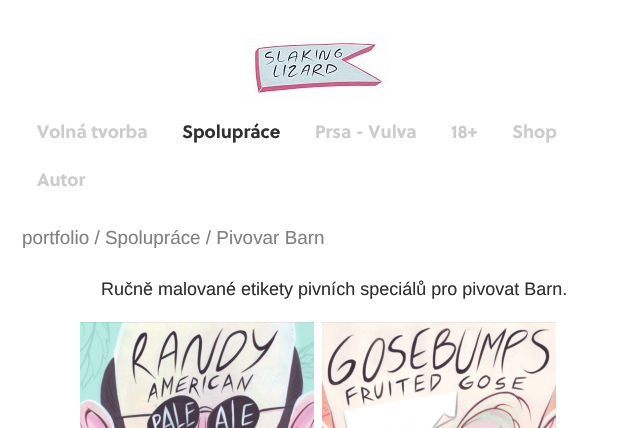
#include "include/core/SkBlurTypes.h"
#include "include/core/SkCanvas.h"
#include "include/core/SkData.h"
#include "include/core/SkFont.h"
#include "include/core/SkFontMgr.h"
#include "include/core/SkImage.h"
#include "include/core/SkMaskFilter.h"
#include "include/core/SkPaint.h"
#include "include/core/SkPathBuilder.h"
#include "include/core/SkTextBlob.h"
#include "include/effects/SkDashPathEffect.h"
#include "include/effects/SkGradientShader.h"
#include "include/utils/SkParsePath.h"

extern sk_sp<SkFontMgr> fontMgr;

static SkFont font(const char* family, int weight, float size, bool italic = false) {
    SkFontStyle style(weight, SkFontStyle::kNormal_Width,
        italic ? SkFontStyle::kItalic_Slant : SkFontStyle::kUpright_Slant);
    SkFont result(fontMgr->matchFamilyStyle(family, style), size);
    result.setSubpixel(true);
    return result;
}

static void drawLabel(SkCanvas* canvas, const char* s, float x, float y, const SkFont& font, SkColor color) {
    SkPaint ink(SkColor4f::FromColor(color));
    ink.setAntiAlias(true);
    canvas->drawString(s, x, y, font, ink);
}

static void drawPhoto(SkCanvas* canvas, const char* path, float x, float y, float w, float h) {
    auto image = SkImages::DeferredFromEncodedData(SkData::MakeFromFileName(path));
    canvas->drawImageRect(image, SkRect::MakeXYWH(x, y, w, h), SkSamplingOptions());
}

void draw(SkCanvas* canvas) {
    SkPaint paint;
    paint.setAntiAlias(true);
    canvas->clear(0xFFFFFFFF);
    drawPhoto(canvas, "assets/img1.png", 245, 37, 144, 63);
    SkFont font1 = font("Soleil", 700, 18);
    drawLabel(canvas, "Volná tvorba", 37, 138, font1, 0xFFCCCCCC);
    drawLabel(canvas, "Spolupráce", 182, 138, font1, 0xFF303030);
    drawLabel(canvas, "Prsa - Vulva", 315, 138, font1, 0xFFCCCCCC);
    drawLabel(canvas, "18+", 451, 138, font1, 0xFFCCCCCC);
    drawLabel(canvas, "Shop", 512, 138, font1, 0xFFCCCCCC);
    drawLabel(canvas, "Autor", 37, 186, font1, 0xFFCCCCCC);
    SkFont font2 = font("Arimo", 400, 18.9f);
    drawLabel(canvas, "portfolio / Spolupráce / Pivovar Barn", 22, 244, font2, 0xFF808080);
    SkFont font3 = font("Arimo", 400, 18);
    drawLabel(canvas, "Ručně malované etikety pivních speciálů pro pivovat Barn.", 101, 295, font3, 0xFF303030);
    drawPhoto(canvas, "assets/img2.png", 80, 322, 234, 106);
    drawPhoto(canvas, "assets/img3.png", 322, 322, 234, 106);
}
